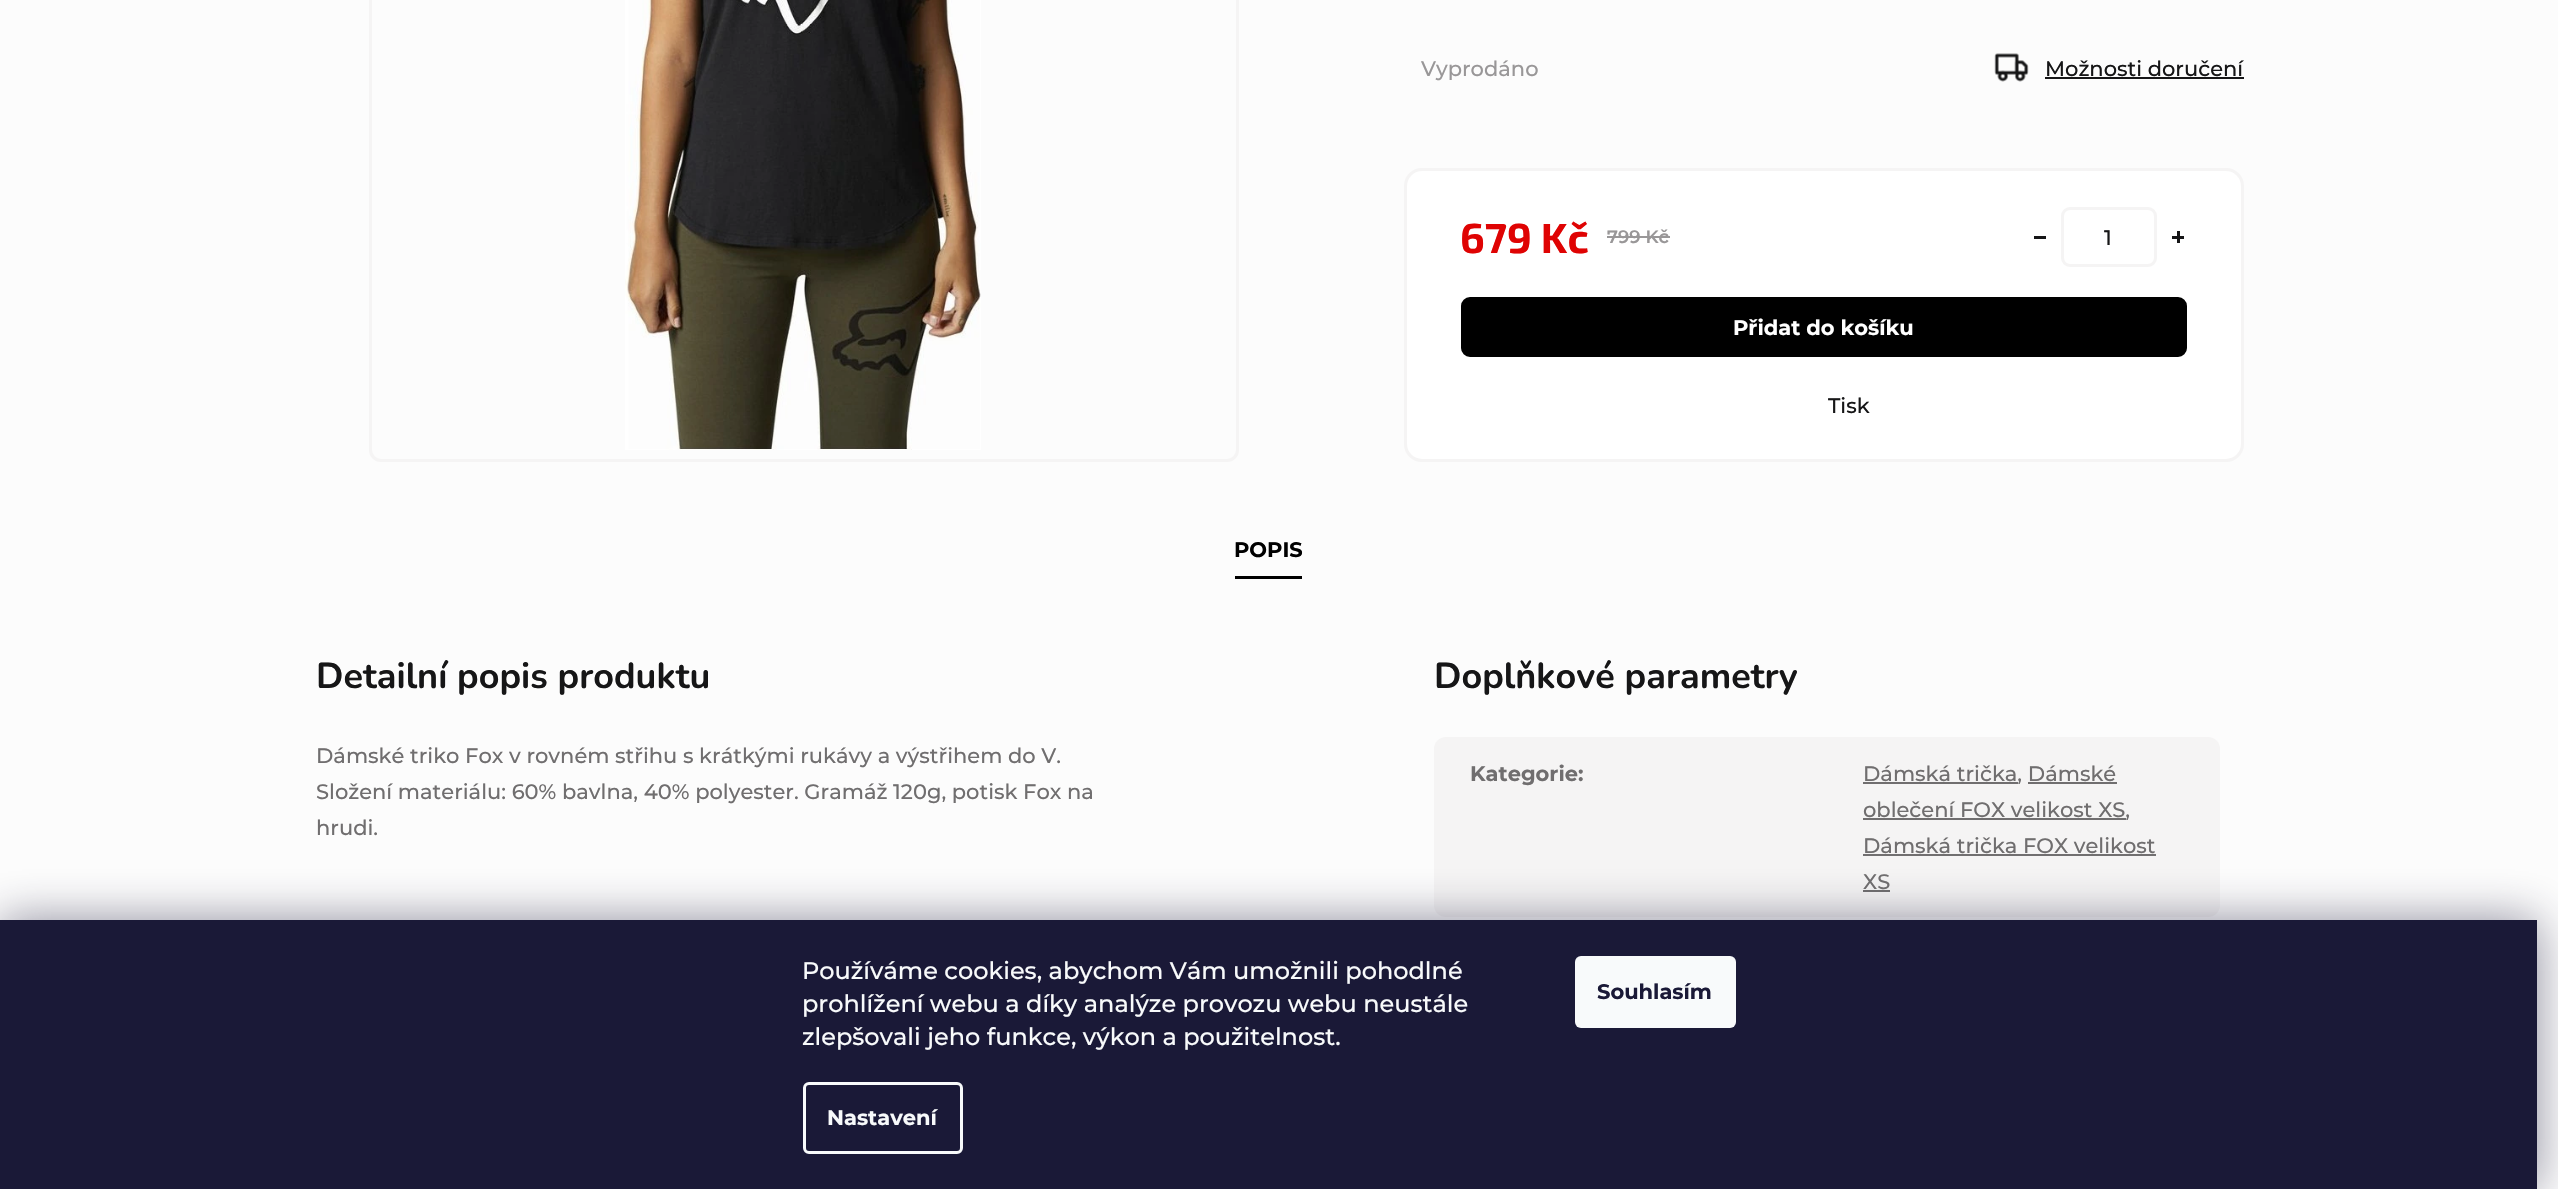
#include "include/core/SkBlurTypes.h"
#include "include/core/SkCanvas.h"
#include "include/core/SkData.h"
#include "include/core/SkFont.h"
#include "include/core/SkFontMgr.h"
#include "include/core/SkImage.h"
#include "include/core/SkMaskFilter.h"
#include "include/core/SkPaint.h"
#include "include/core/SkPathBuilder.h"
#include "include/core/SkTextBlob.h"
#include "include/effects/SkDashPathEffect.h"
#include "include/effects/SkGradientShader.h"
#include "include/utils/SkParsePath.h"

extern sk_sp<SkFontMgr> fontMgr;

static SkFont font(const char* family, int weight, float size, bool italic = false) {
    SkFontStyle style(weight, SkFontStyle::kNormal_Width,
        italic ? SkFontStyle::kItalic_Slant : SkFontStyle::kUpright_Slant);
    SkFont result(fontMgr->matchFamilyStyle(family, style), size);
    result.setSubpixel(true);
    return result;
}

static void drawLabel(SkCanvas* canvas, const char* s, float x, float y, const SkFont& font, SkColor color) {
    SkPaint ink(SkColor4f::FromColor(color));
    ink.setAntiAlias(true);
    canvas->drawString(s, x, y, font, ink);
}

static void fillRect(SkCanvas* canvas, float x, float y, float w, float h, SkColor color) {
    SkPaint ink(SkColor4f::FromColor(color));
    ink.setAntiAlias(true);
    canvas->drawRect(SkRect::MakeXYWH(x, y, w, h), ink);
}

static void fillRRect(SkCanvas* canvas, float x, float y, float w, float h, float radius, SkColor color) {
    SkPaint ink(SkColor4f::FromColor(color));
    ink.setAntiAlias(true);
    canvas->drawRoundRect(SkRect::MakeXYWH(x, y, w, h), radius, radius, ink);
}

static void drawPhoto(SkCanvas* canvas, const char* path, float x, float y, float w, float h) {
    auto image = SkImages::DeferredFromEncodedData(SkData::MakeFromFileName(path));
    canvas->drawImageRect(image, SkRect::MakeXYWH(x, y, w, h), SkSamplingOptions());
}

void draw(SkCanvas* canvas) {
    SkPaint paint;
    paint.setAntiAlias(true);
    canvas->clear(0xFFFCFCFC);
    paint.setStroke(true);
    paint.setStrokeWidth(3);
    paint.setColor(0xFFF5F4F4);
    canvas->drawRoundRect(SkRect::MakeXYWH(370.5f, -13.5f, 867, 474), 10.5f, 10.5f, paint);
    drawPhoto(canvas, "assets/img1.png", 625, 0, 356, 450);
    SkFont font1 = font("Montserrat", 500, 21);
    drawLabel(canvas, "Vyprodáno", 1421, 76, font1, 0xFF999798);
    drawPhoto(canvas, "assets/img2.png", 1994, 53, 35, 29);
    drawLabel(canvas, "Možnosti doručení", 2045, 76, font1, 0xFF161617);
    fillRect(canvas, 2045, 77, 199, 2, 0xFF161617);
    paint.setStroke(false);
    paint.setColor(0xFFFFFFFF);
    canvas->drawRoundRect(SkRect::MakeXYWH(1405.5f, 169.5f, 837, 291), 16.5f, 16.5f, paint);
    paint.setStroke(true);
    paint.setColor(0xFFF5F4F4);
    canvas->drawRoundRect(SkRect::MakeXYWH(1405.5f, 169.5f, 837, 291), 16.5f, 16.5f, paint);
    SkFont font2 = font("Exo 2", 700, 42);
    drawLabel(canvas, "679 Kč", 1460, 253, font2, 0xFFDF0303);
    SkFont font3 = font("Montserrat", 600, 18);
    drawLabel(canvas, "799 Kč", 1607, 243, font3, 0xFF999798);
    fillRect(canvas, 1607, 236, 63, 2, 0xFF999798);
    fillRect(canvas, 2034, 236, 12, 3, 0xFF161617);
    canvas->drawRoundRect(SkRect::MakeXYWH(2062.5f, 208.5f, 93, 57), 7.5f, 7.5f, paint);
    drawLabel(canvas, "1", 2104, 245, font1, 0xFF161617);
    fillRect(canvas, 2172, 236, 12, 3, 0xFF161617);
    fillRect(canvas, 2177, 231, 3, 12, 0xFF161617);
    paint.setStroke(false);
    paint.setColor(0xFF000000);
    canvas->drawRoundRect(SkRect::MakeXYWH(1462.5f, 298.5f, 723, 57), 7.5f, 7.5f, paint);
    paint.setStroke(true);
    canvas->drawRoundRect(SkRect::MakeXYWH(1462.5f, 298.5f, 723, 57), 7.5f, 7.5f, paint);
    SkFont font4 = font("Montserrat", 700, 21);
    drawLabel(canvas, "Přidat do košíku", 1733, 335, font4, 0xFFFFFFFF);
    drawLabel(canvas, "Tisk", 1828, 413, font1, 0xFF161617);
    fillRect(canvas, 1235, 576, 67, 3, 0xFF000000);
    drawLabel(canvas, "POPIS", 1234, 557, font4, 0xFF000000);
    SkFont font5 = font("Nunito", 700, 36);
    drawLabel(canvas, "Detailní popis produktu", 316, 688, font5, 0xFF161617);
    drawLabel(canvas, "Dámské triko Fox v rovném střihu s krátkými rukávy a výstřihem do V.", 316, 763, font1, 0xFF706E6F);
    drawLabel(canvas, "Složení materiálu: 60% bavlna, 40% polyester. Gramáž 120g, potisk Fox na", 316, 799, font1, 0xFF706E6F);
    drawLabel(canvas, "hrudi.", 316, 835, font1, 0xFF706E6F);
    drawLabel(canvas, "Doplňkové parametry", 1434, 688, font5, 0xFF161617);
    fillRRect(canvas, 1434, 737, 786, 180, 12, 0xFFF5F4F4);
    drawLabel(canvas, "Kategorie:", 1470, 781, font4, 0xFF706E6F);
    fillRect(canvas, 1863, 782, 155, 2, 0xFF706E6F);
    drawLabel(canvas, "Dámská trička, Dámské", 1863, 781, font1, 0xFF706E6F);
    fillRect(canvas, 1863, 818, 263, 2, 0xFF706E6F);
    drawLabel(canvas, "oblečení FOX velikost XS,", 1863, 817, font1, 0xFF706E6F);
    fillRect(canvas, 2028, 782, 89, 2, 0xFF706E6F);
    drawLabel(canvas, "Dámská trička FOX velikost", 1863, 853, font1, 0xFF706E6F);
    fillRect(canvas, 1863, 854, 293, 2, 0xFF706E6F);
    drawLabel(canvas, "XS", 1863, 889, font1, 0xFF706E6F);
    fillRect(canvas, 1863, 890, 27, 2, 0xFF706E6F);
    paint.setStroke(false);
    paint.setColor(0x801B1939);
    paint.setMaskFilter(SkMaskFilter::MakeBlur(kNormal_SkBlurStyle, 22.5f));
    canvas->drawRect(SkRect::MakeXYWH(0, 920, 2537, 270), paint);
    paint.setMaskFilter(nullptr);
    fillRect(canvas, 0, 920, 2537, 269, 0xFF1A1937);
    SkFont font6 = font("Montserrat", 500, 24);
    drawLabel(canvas, "Používáme cookies, abychom Vám umožnili pohodlné", 802, 979, font6, 0xFFF8FAFB);
    drawLabel(canvas, "prohlížení webu a díky analýze provozu webu neustále", 802, 1012, font6, 0xFFF8FAFB);
    drawLabel(canvas, "zlepšovali jeho funkce, výkon a použitelnost.", 802, 1045, font6, 0xFFF8FAFB);
    paint.setStroke(true);
    paint.setColor(0xFFF8FAFB);
    canvas->drawRoundRect(SkRect::MakeXYWH(804.5f, 1083.5f, 157, 69), 4.5f, 4.5f, paint);
    drawLabel(canvas, "Nastavení", 827, 1125, font4, 0xFFF8FAFB);
    fillRRect(canvas, 1575, 956, 161, 72, 6, 0xFFF8FAFB);
    drawLabel(canvas, "Souhlasím", 1597, 999, font4, 0xFF1A1937);
}
